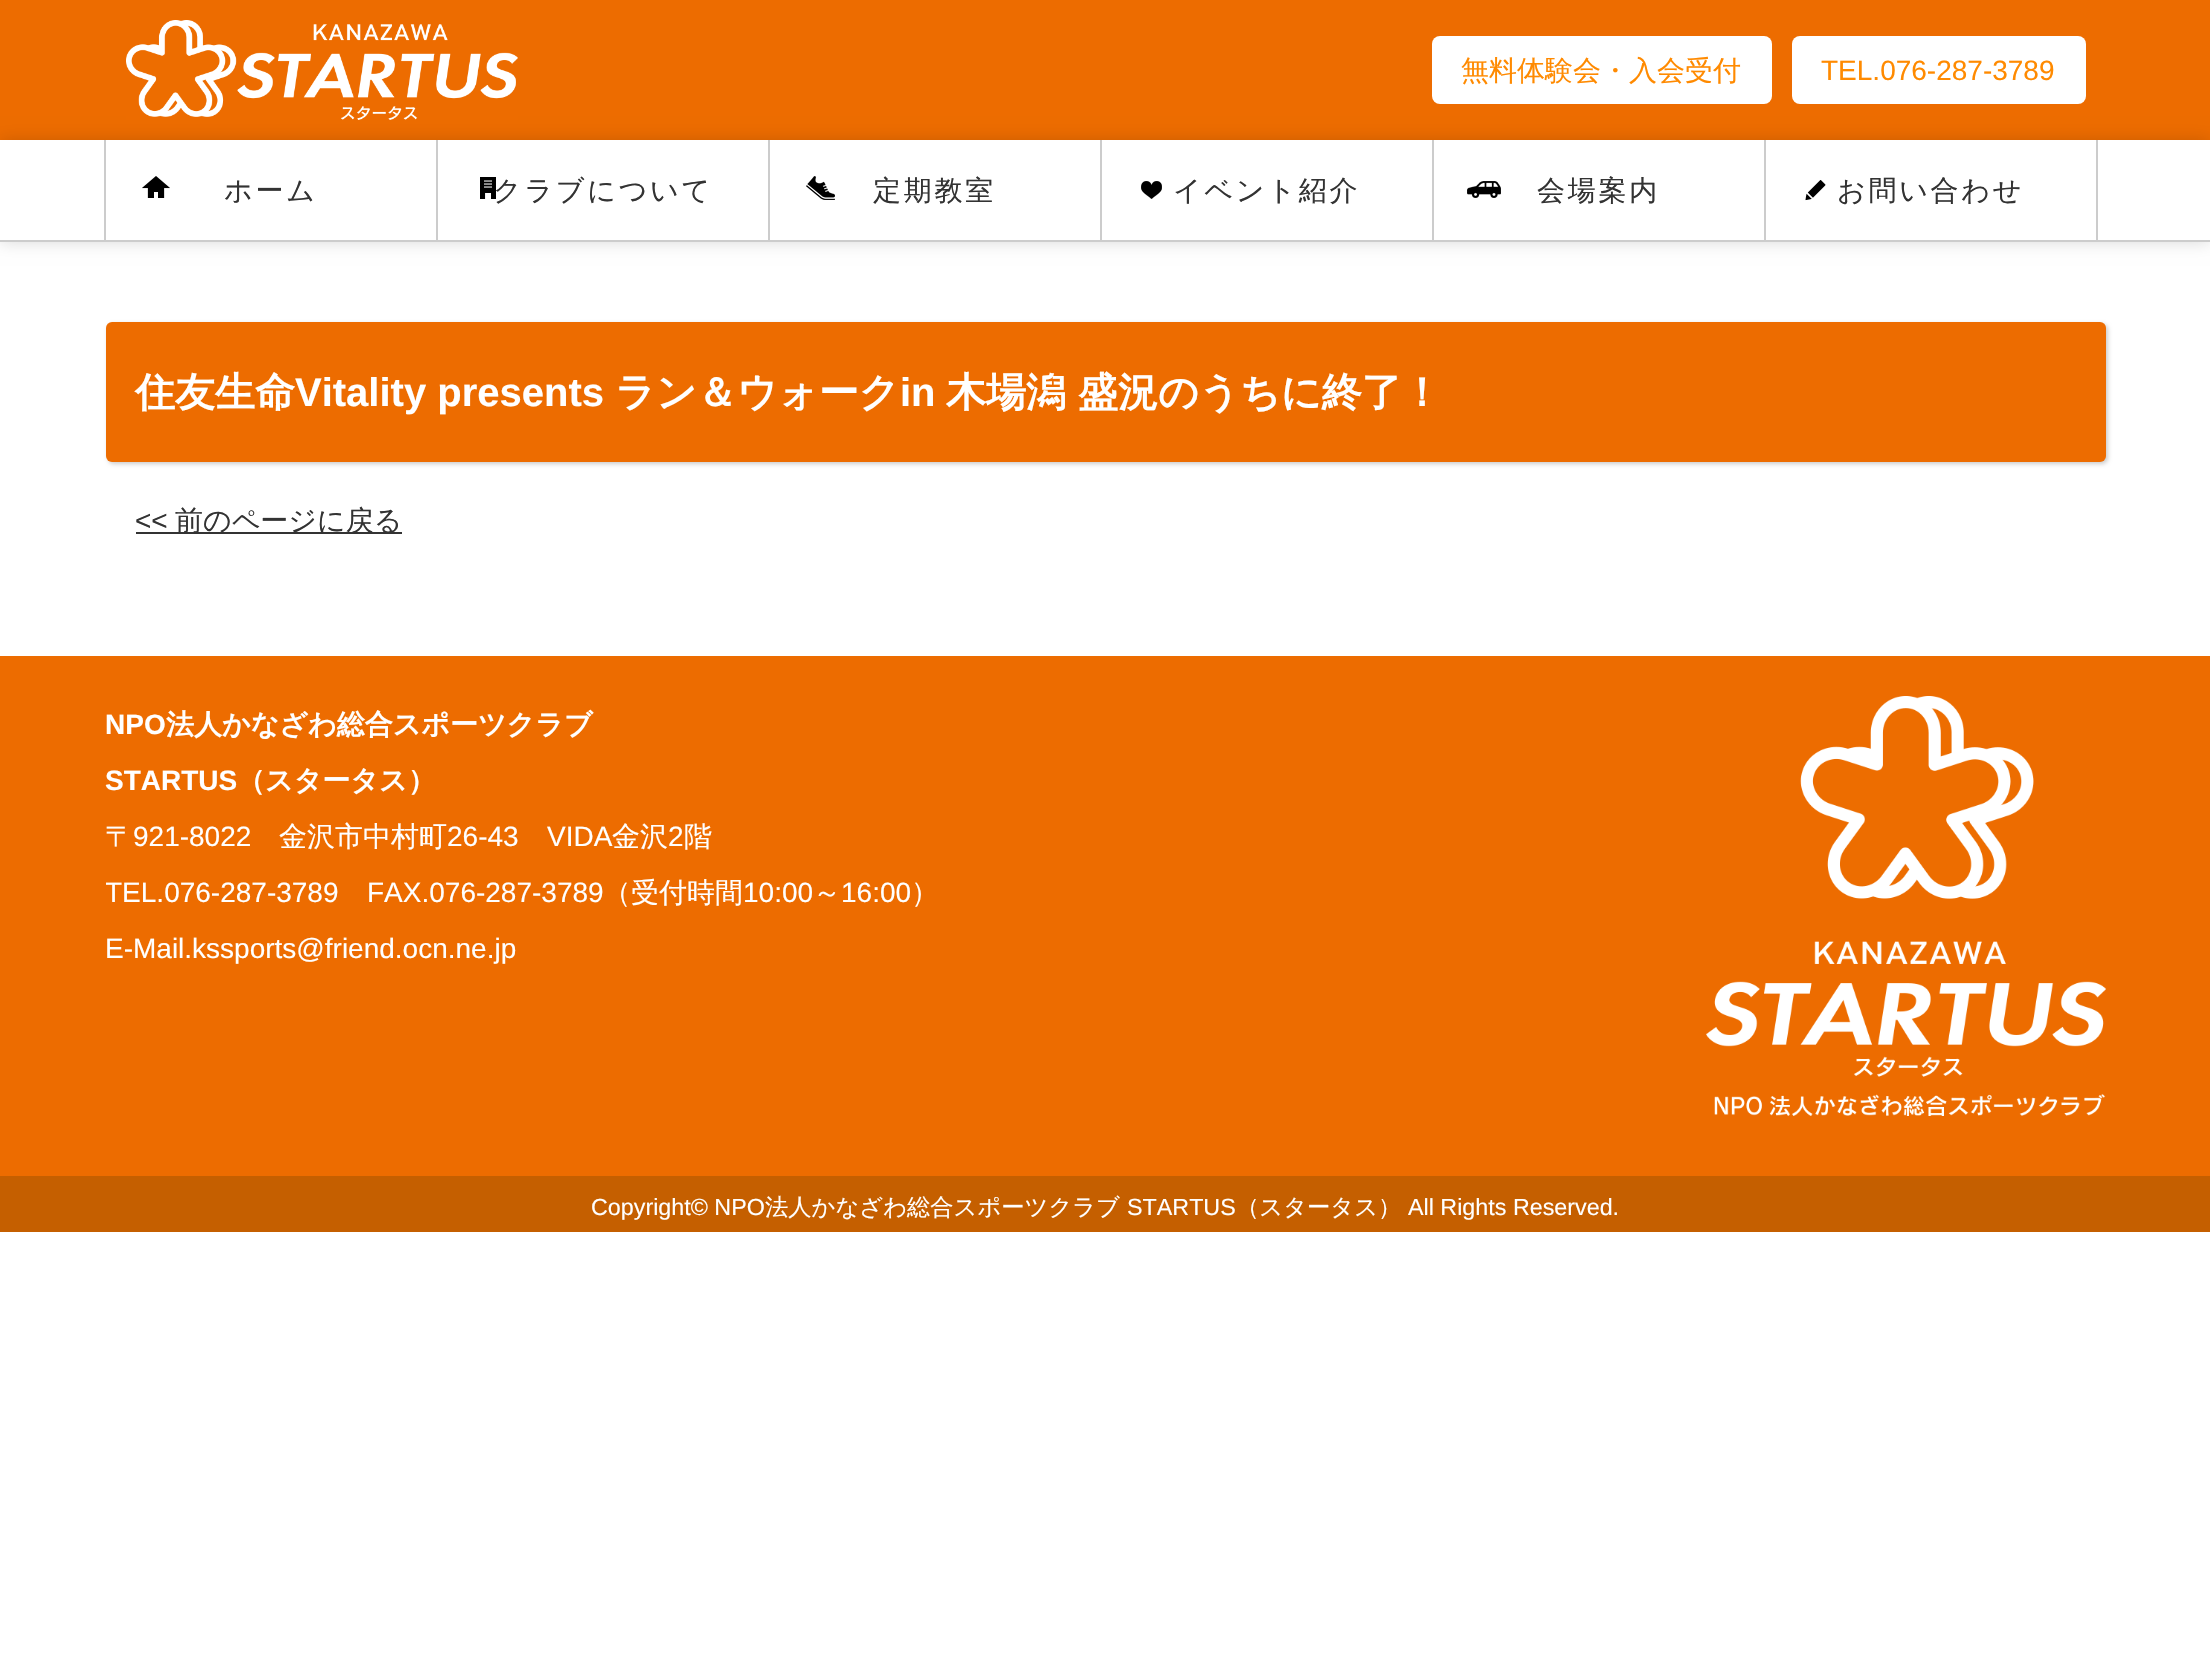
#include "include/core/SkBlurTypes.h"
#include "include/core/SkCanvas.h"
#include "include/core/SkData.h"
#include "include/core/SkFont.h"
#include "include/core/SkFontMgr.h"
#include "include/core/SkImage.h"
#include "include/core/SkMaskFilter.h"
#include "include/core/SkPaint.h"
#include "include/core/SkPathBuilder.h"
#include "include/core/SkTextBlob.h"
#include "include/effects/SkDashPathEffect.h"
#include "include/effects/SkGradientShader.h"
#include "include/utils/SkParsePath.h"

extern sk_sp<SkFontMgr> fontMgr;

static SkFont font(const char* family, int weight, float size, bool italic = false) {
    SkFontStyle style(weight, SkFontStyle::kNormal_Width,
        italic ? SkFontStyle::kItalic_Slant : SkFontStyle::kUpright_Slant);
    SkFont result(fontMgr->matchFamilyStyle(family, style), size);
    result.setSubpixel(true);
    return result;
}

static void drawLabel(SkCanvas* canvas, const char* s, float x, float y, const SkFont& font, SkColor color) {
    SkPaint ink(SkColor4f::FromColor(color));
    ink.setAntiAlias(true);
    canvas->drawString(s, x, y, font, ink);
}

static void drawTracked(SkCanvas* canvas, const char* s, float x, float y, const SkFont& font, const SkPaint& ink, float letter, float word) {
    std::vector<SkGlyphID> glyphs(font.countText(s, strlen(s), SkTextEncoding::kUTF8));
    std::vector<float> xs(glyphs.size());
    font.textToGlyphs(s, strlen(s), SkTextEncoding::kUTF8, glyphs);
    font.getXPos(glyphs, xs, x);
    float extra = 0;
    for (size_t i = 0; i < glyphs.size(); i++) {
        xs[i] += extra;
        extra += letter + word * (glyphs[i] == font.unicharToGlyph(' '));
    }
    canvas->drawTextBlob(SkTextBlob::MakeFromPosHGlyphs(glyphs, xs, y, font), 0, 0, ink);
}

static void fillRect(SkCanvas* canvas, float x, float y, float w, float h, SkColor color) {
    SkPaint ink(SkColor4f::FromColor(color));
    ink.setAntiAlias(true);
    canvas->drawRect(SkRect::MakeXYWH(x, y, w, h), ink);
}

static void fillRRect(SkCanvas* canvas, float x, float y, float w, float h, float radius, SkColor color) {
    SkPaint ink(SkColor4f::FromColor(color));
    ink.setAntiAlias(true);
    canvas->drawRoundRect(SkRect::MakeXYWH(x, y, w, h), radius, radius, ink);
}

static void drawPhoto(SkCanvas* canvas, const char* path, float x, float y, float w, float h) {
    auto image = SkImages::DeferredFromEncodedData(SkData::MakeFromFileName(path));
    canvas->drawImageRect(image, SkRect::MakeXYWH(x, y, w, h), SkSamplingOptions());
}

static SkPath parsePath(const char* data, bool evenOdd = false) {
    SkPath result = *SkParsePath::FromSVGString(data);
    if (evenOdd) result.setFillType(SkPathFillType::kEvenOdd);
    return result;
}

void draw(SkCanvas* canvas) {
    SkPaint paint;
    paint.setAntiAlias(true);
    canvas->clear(0xFFFFFFFF);
    fillRect(canvas, 0, 0, 2210, 140, 0xFFED6C00);
    canvas->save();
    canvas->clipPath(parsePath("M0 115H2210V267H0ZM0 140H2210V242H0Z", true), true);
    paint.setColor(0x26000000);
    paint.setMaskFilter(SkMaskFilter::MakeBlur(kNormal_SkBlurStyle, 8));
    canvas->drawRect(SkRect::MakeXYWH(0, 140, 2210, 102), paint);
    paint.setMaskFilter(nullptr);
    canvas->restore();
    drawPhoto(canvas, "assets/img1.png", 126, 20, 392, 100);
    fillRRect(canvas, 1432, 36, 340, 68, 8, 0xFFFFFFFF);
    SkFont font1 = font("WenQuanYi Zen Hei", 500, 28);
    drawLabel(canvas, "無料体験会・入会受付", 1461, 80, font1, 0xFFFF8A00);
    fillRRect(canvas, 1792, 36, 294, 68, 8, 0xFFFFFFFF);
    SkFont font2 = font("Liberation Sans", 400, 28);
    drawLabel(canvas, "TEL.076-287-3789", 1821, 80, font2, 0xFFFF8A00);
    fillRect(canvas, 0, 240, 2210, 2, 0xFFCCCCCC);
    fillRect(canvas, 104, 140, 2, 100, 0xFFCCCCCC);
    fillRect(canvas, 436, 140, 2, 100, 0xFFCCCCCC);
    drawPhoto(canvas, "assets/img2.png", 142, 176, 28, 22);
    paint.setColor(0xFF333333);
    drawTracked(canvas, "ホーム", 224, 200, font1, paint, 2.75f, 0);
    fillRect(canvas, 768, 140, 2, 100, 0xFFCCCCCC);
    drawPhoto(canvas, "assets/img3.png", 480, 177, 16, 22);
    drawTracked(canvas, "クラブについて", 493, 200, font1, paint, 2.75f, 0);
    fillRect(canvas, 1100, 140, 2, 100, 0xFFCCCCCC);
    drawPhoto(canvas, "assets/img4.png", 806, 176, 29, 24);
    drawTracked(canvas, "定期教室", 873, 200, font1, paint, 2.75f, 0);
    fillRect(canvas, 1432, 140, 2, 100, 0xFFCCCCCC);
    drawPhoto(canvas, "assets/img5.png", 1141, 181, 21, 18);
    drawTracked(canvas, "イベント紹介", 1173, 200, font1, paint, 2.75f, 0);
    fillRect(canvas, 1764, 140, 2, 100, 0xFFCCCCCC);
    drawPhoto(canvas, "assets/img6.png", 1467, 181, 34, 17);
    drawTracked(canvas, "会場案内", 1537, 200, font1, paint, 2.75f, 0);
    fillRect(canvas, 2096, 140, 2, 100, 0xFFCCCCCC);
    drawPhoto(canvas, "assets/img7.png", 1805, 180, 21, 21);
    drawTracked(canvas, "お問い合わせ", 1837, 200, font1, paint, 2.75f, 0);
    paint.setColor(0x33000000);
    paint.setMaskFilter(SkMaskFilter::MakeBlur(kNormal_SkBlurStyle, 2));
    canvas->drawRoundRect(SkRect::MakeXYWH(108, 324, 2000, 140), 6, 6, paint);
    paint.setMaskFilter(nullptr);
    fillRRect(canvas, 106, 322, 2000, 140, 6, 0xFFED6C00);
    SkFont font3 = font("WenQuanYi Zen Hei", 700, 40);
    drawLabel(canvas, "住友生命", 135, 406, font3, 0xFFFFFFFF);
    SkFont font4 = font("Liberation Sans", 700, 40);
    drawLabel(canvas, "Vitality presents", 295, 406, font4, 0xFFFFFFFF);
    drawLabel(canvas, "ラン＆ウォーク", 615, 406, font3, 0xFFFFFFFF);
    drawLabel(canvas, "in", 900, 406, font4, 0xFFFFFFFF);
    drawLabel(canvas, "木場潟", 946, 406, font3, 0xFFFFFFFF);
    drawLabel(canvas, "盛況のうちに終了！", 1078, 406, font3, 0xFFFFFFFF);
    drawLabel(canvas, "<<", 135, 530, font2, 0xFF333333);
    fillRect(canvas, 136, 532, 266, 2, 0xFF333333);
    drawLabel(canvas, "前のページに戻る", 175, 530, font1, 0xFF333333);
    fillRect(canvas, 0, 656, 2210, 520, 0xFFED6C00);
    SkFont font5 = font("Liberation Sans", 700, 28);
    drawLabel(canvas, "NPO", 105, 734, font5, 0xFFFFFFFF);
    SkFont font6 = font("WenQuanYi Zen Hei", 700, 28);
    drawLabel(canvas, "法人かなざわ総合スポーツクラブ", 166, 734, font6, 0xFFFFFFFF);
    drawPhoto(canvas, "assets/img8.png", 1706, 696, 400, 420);
    drawLabel(canvas, "STARTUS", 105, 790, font5, 0xFFFFFFFF);
    drawLabel(canvas, "（スタータス）", 237, 790, font6, 0xFFFFFFFF);
    drawLabel(canvas, "〒", 105, 846, font1, 0xFFFFFFFF);
    drawLabel(canvas, "921-8022", 133, 846, font2, 0xFFFFFFFF);
    drawLabel(canvas, "金沢市中村町", 279, 846, font1, 0xFFFFFFFF);
    drawLabel(canvas, "26-43", 447, 846, font2, 0xFFFFFFFF);
    drawLabel(canvas, "VIDA", 547, 846, font2, 0xFFFFFFFF);
    drawLabel(canvas, "金沢", 612, 846, font1, 0xFFFFFFFF);
    drawLabel(canvas, "2", 668, 846, font2, 0xFFFFFFFF);
    drawLabel(canvas, "階", 684, 846, font1, 0xFFFFFFFF);
    canvas->save();
    canvas->clipRect(SkRect::MakeXYWH(106, 656, 2000, 520));
    drawLabel(canvas, "TEL.076-287-3789", 105, 902, font2, 0xFFFFFFFF);
    canvas->restore();
    drawLabel(canvas, "FAX.076-287-3789", 367, 902, font2, 0xFFFFFFFF);
    drawLabel(canvas, "（受付時間", 603, 902, font1, 0xFFFFFFFF);
    drawLabel(canvas, "10:00", 743, 902, font2, 0xFFFFFFFF);
    drawLabel(canvas, "～", 813, 902, font1, 0xFFFFFFFF);
    drawLabel(canvas, "16:00", 841, 902, font2, 0xFFFFFFFF);
    drawLabel(canvas, "）", 911, 902, font1, 0xFFFFFFFF);
    drawLabel(canvas, "E-Mail.kssports@friend.ocn.ne.jp", 105, 958, font2, 0xFFFFFFFF);
    fillRect(canvas, 0, 1176, 2210, 56, 0xFFC55F00);
    SkFont font7 = font("Liberation Sans", 400, 23.3f);
    drawLabel(canvas, "Copyright© NPO", 591, 1215, font7, 0xFFFFFFFF);
    SkFont font8 = font("WenQuanYi Zen Hei", 500, 23.3f);
    drawLabel(canvas, "法人かなざわ総合スポーツクラブ", 765, 1215, font8, 0xFFFFFFFF);
    drawLabel(canvas, "STARTUS", 1127, 1215, font7, 0xFFFFFFFF);
    drawLabel(canvas, "（スタータス）", 1236, 1215, font8, 0xFFFFFFFF);
    drawLabel(canvas, "All Rights Reserved.", 1408, 1215, font7, 0xFFFFFFFF);
}
